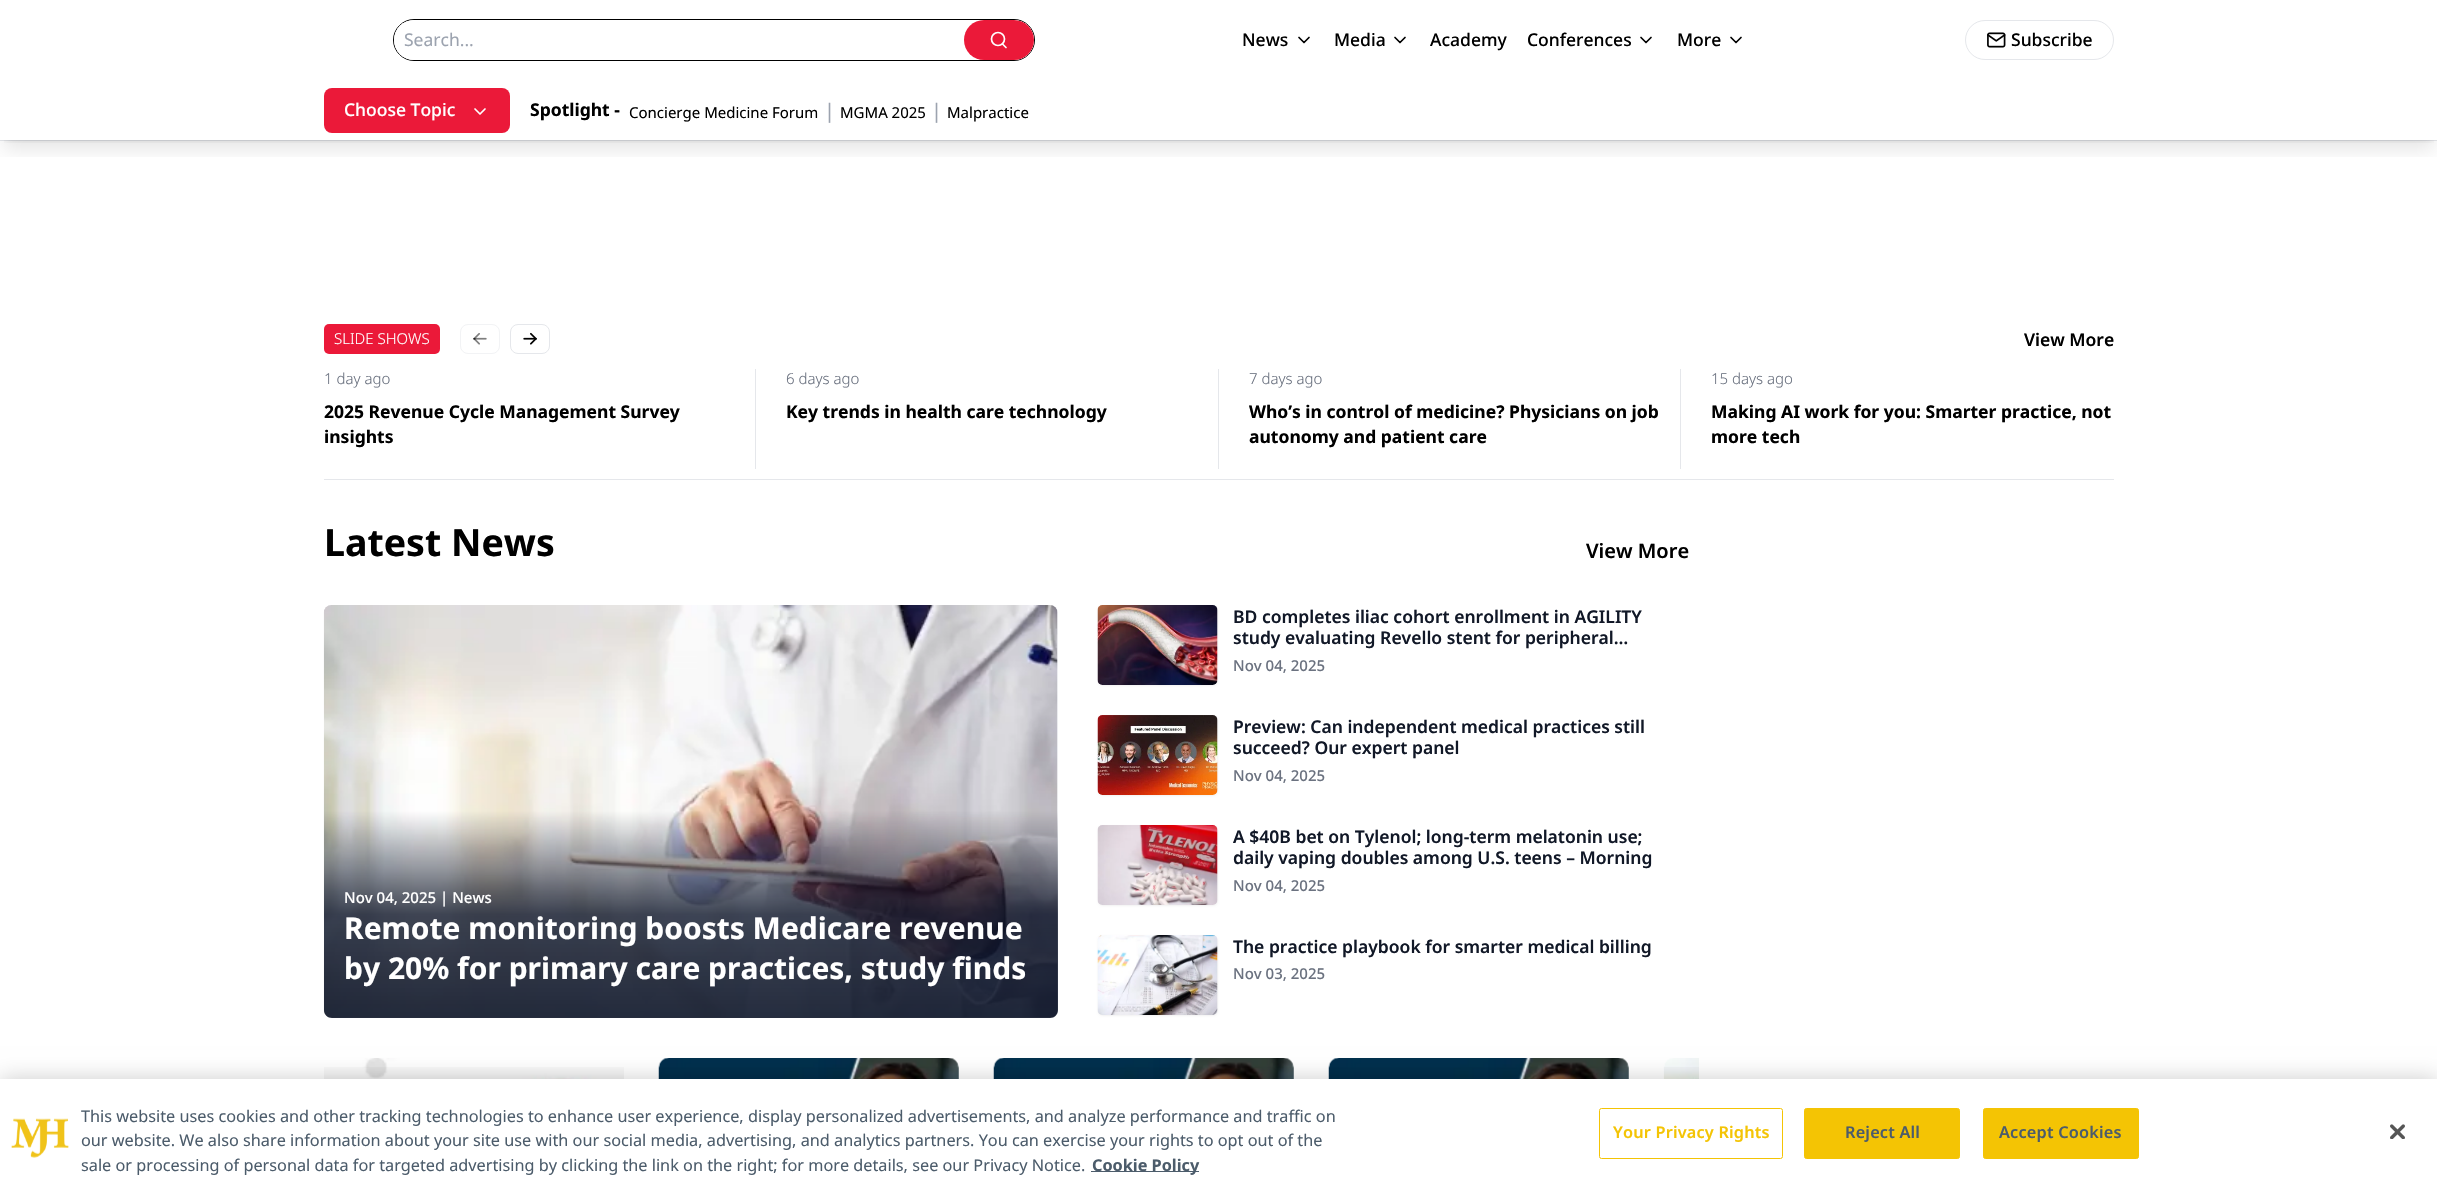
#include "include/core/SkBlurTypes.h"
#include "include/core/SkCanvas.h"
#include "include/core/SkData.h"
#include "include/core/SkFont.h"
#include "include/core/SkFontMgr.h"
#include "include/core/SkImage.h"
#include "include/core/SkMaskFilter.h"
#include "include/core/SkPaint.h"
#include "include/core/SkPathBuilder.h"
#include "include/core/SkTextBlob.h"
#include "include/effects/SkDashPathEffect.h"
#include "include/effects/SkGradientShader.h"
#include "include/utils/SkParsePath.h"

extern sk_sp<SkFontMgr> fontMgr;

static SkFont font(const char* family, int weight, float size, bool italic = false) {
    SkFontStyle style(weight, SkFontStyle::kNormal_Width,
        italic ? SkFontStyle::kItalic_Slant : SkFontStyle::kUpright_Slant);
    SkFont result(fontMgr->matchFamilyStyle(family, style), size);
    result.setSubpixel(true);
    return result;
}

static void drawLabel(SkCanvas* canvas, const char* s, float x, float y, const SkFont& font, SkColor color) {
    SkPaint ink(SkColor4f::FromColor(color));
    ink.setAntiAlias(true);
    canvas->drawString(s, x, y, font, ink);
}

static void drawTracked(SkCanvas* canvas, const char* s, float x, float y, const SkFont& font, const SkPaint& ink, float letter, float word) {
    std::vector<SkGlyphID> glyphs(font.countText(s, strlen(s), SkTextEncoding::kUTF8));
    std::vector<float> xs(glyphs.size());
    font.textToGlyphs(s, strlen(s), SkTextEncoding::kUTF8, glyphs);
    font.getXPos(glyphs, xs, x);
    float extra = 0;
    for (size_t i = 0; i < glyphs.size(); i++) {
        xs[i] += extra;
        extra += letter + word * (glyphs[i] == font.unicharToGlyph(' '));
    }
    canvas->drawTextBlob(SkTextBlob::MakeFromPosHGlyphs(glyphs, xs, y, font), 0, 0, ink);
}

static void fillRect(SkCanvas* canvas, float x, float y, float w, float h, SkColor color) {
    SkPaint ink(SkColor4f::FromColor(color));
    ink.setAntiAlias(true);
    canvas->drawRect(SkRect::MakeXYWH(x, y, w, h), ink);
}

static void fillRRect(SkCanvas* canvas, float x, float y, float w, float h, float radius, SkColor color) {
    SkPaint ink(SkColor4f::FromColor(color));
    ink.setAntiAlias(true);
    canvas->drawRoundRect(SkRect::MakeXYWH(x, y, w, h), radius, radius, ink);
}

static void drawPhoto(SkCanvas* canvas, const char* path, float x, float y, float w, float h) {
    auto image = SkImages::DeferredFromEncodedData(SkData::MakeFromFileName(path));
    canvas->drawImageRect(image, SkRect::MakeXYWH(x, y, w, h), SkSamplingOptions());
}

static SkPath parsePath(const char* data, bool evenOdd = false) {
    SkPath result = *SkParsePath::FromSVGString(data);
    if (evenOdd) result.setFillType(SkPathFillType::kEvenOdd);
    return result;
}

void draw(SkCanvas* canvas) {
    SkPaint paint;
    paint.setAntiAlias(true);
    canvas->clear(0xFFFFFFFF);
    fillRect(canvas, 0, 140, 2437, 1, 0xFFE5E7EB);
    paint.setStroke(true);
    paint.setStrokeWidth(1);
    paint.setColor(0xFF000000);
    canvas->drawRoundRect(SkRect::MakeXYWH(393.5f, 19.5f, 641, 41), 20.5f, 20.5f, paint);
    fillRRect(canvas, 394, 20, 640, 40, 20, 0xFFFFFFFF);
    SkFont font1 = font("Noto Sans", 400, 17.5f);
    drawLabel(canvas, "Search...", 404, 46, font1, 0xFF9CA3AF);
    fillRRect(canvas, 964, 20, 70, 40, 20, 0xFFEB1939);
    paint.setStrokeWidth(1.7f);
    paint.setColor(0xFFFFFFFF);
    canvas->drawCircle(998, 39, 6.5f, paint);
    paint.setStrokeCap(SkPaint::kRound_Cap);
    paint.setStrokeJoin(SkPaint::kRound_Join);
    canvas->drawPath(parsePath("M1006 47.5L1002.5 44"), paint);
    SkFont font2 = font("Noto Sans", 500, 17.5f);
    drawLabel(canvas, "News", 1242, 46, font2, 0xFF000000);
    paint.setColor(0xFF000000);
    canvas->drawPath(parsePath("M1299 37.5L1304 42.5L1309 37.5"), paint);
    drawLabel(canvas, "Media", 1334, 46, font2, 0xFF000000);
    canvas->drawPath(parsePath("M1395 37.5L1400 42.5L1405 37.5"), paint);
    drawLabel(canvas, "Academy", 1430, 46, font2, 0xFF000000);
    drawLabel(canvas, "Conferences", 1527, 46, font2, 0xFF000000);
    canvas->drawPath(parsePath("M1641 37.5L1646 42.5L1651 37.5"), paint);
    drawLabel(canvas, "More", 1677, 46, font2, 0xFF000000);
    canvas->drawPath(parsePath("M1731 37.5L1736 42.5L1741 37.5"), paint);
    paint.setStrokeWidth(1);
    paint.setStrokeCap(SkPaint::kButt_Cap);
    paint.setStrokeJoin(SkPaint::kMiter_Join);
    paint.setColor(0xFFE5E7EB);
    canvas->drawRoundRect(SkRect::MakeXYWH(1965.5f, 20.5f, 148, 39), 19.5f, 19.5f, paint);
    drawPhoto(canvas, "assets/img1.png", 1987, 32, 19, 16);
    drawLabel(canvas, "Subscribe", 2011, 46, font2, 0xFF000000);
    canvas->save();
    canvas->clipRect(SkRect::MakeXYWH(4, 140, 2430, 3));
    paint.setStroke(false);
    paint.setColor(0x1A000000);
    paint.setMaskFilter(SkMaskFilter::MakeBlur(kNormal_SkBlurStyle, 4));
    canvas->drawRect(SkRect::MakeXYWH(5, 90, 2428, 50), paint);
    paint.setMaskFilter(nullptr);
    canvas->restore();
    canvas->save();
    canvas->clipRect(SkRect::MakeXYWH(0, 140, 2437, 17));
    paint.setMaskFilter(SkMaskFilter::MakeBlur(kNormal_SkBlurStyle, 9.5f));
    canvas->drawRect(SkRect::MakeXYWH(4, 96, 2430, 53), paint);
    paint.setMaskFilter(nullptr);
    canvas->restore();
    fillRRect(canvas, 324, 88, 186, 45, 8, 0xFFEB1939);
    drawLabel(canvas, "Choose Topic", 344, 116, font2, 0xFFFFFFFF);
    paint.setStroke(true);
    paint.setStrokeWidth(1.7f);
    paint.setStrokeCap(SkPaint::kRound_Cap);
    paint.setStrokeJoin(SkPaint::kRound_Join);
    paint.setColor(0xFFFFFFFF);
    canvas->drawPath(parsePath("M475 109L480 114L485 109"), paint);
    SkFont font3 = font("Noto Sans", 700, 17.5f);
    drawLabel(canvas, "Spotlight -", 530, 116, font3, 0xFF000000);
    SkFont font4 = font("Noto Sans", 400, 15);
    drawLabel(canvas, "Concierge Medicine Forum", 629, 118, font4, 0xFF000000);
    SkFont font5 = font("Noto Sans", 400, 20);
    drawLabel(canvas, "|", 824, 118, font5, 0xFF9CA3AF);
    drawLabel(canvas, "MGMA 2025", 840, 118, font4, 0xFF000000);
    drawLabel(canvas, "|", 931, 118, font5, 0xFF9CA3AF);
    drawLabel(canvas, "Malpractice", 947, 118, font4, 0xFF000000);
    fillRect(canvas, 324, 479, 1790, 1, 0xFFE5E7EB);
    fillRRect(canvas, 324, 324, 116, 30, 5, 0xFFEB1939);
    SkFont font6 = font("Noto Sans", 300, 15);
    drawLabel(canvas, "SLIDE SHOWS", 334, 344, font6, 0xFFFFFFFF);
    paint.setStrokeWidth(1);
    paint.setStrokeCap(SkPaint::kButt_Cap);
    paint.setStrokeJoin(SkPaint::kMiter_Join);
    paint.setColor(0xFFF2F3F5);
    canvas->drawRoundRect(SkRect::MakeXYWH(460.5f, 324.5f, 39, 29), 7.5f, 7.5f, paint);
    drawPhoto(canvas, "assets/img2.png", 473, 333, 14, 12);
    paint.setColor(0xFFE5E7EB);
    canvas->drawRoundRect(SkRect::MakeXYWH(510.5f, 324.5f, 39, 29), 7.5f, 7.5f, paint);
    drawPhoto(canvas, "assets/img3.png", 523, 332, 14, 13);
    SkFont font7 = font("Noto Sans", 600, 17.5f);
    drawLabel(canvas, "View More", 2024, 346, font7, 0xFF000000);
    fillRect(canvas, 755, 369, 1, 100, 0xFFE5E7EB);
    drawLabel(canvas, "1 day ago", 324, 384, font6, 0xFF6B7280);
    drawLabel(canvas, "2025 Revenue Cycle Management Survey", 324, 418, font3, 0xFF000000);
    drawLabel(canvas, "insights", 324, 443, font3, 0xFF000000);
    fillRect(canvas, 1218, 369, 1, 100, 0xFFE5E7EB);
    drawLabel(canvas, "6 days ago", 786, 384, font6, 0xFF6B7280);
    drawLabel(canvas, "Key trends in health care technology", 786, 418, font3, 0xFF000000);
    fillRect(canvas, 1680, 369, 1, 100, 0xFFE5E7EB);
    drawLabel(canvas, "7 days ago", 1249, 384, font6, 0xFF6B7280);
    drawLabel(canvas, "Who’s in control of medicine? Physicians on job", 1249, 418, font3, 0xFF000000);
    drawLabel(canvas, "autonomy and patient care", 1249, 443, font3, 0xFF000000);
    drawLabel(canvas, "15 days ago", 1711, 384, font6, 0xFF6B7280);
    drawLabel(canvas, "Making AI work for you: Smarter practice, not", 1711, 418, font3, 0xFF000000);
    drawLabel(canvas, "more tech", 1711, 443, font3, 0xFF000000);
    SkFont font8 = font("Noto Sans", 700, 37.5f);
    drawLabel(canvas, "Latest News", 324, 556, font8, 0xFF000000);
    SkFont font9 = font("Noto Sans", 600, 20);
    drawLabel(canvas, "View More", 1586, 558, font9, 0xFF000000);
    fillRRect(canvas, 324, 605, 734, 413, 8, 0xFFF9FAFB);
    drawPhoto(canvas, "assets/img4.png", 323, 605, 735, 413);
    paint.setStroke(false);
    {
        const SkColor colors[] = {0xE60F172A, 0xCC0F172A, 0x000F172A};
        const float stops[] = {0, 0.5f, 1};
        const SkPoint ends[] = {{691, 1018}, {691, 811}};
        paint.setShader(SkGradientShader::MakeLinear(ends, colors, stops, 3, SkTileMode::kClamp));
        paint.setAlpha(255);
    }
    canvas->drawPath(parsePath("M324 811H1058V1010C1058 1014.5 1054.5 1018 1050 1018H332C327.5 1018 324 1014.5 324 1010Z"), paint);
    SkFont font10 = font("Noto Sans", 500, 15);
    drawLabel(canvas, "Nov 04, 2025 | News", 344, 903, font10, 0xFFFFFFFF);
    SkFont font11 = font("Noto Sans", 700, 30);
    drawLabel(canvas, "Remote monitoring boosts Medicare revenue", 344, 939, font11, 0xFFFFFFFF);
    drawLabel(canvas, "by 20% for primary care practices, study finds", 344, 979, font11, 0xFFFFFFFF);
    paint.setShader(nullptr);
    paint.setColor(0x0D000000);
    paint.setMaskFilter(SkMaskFilter::MakeBlur(kNormal_SkBlurStyle, 1));
    canvas->drawRoundRect(SkRect::MakeXYWH(1098, 606, 120, 80), 5, 5, paint);
    paint.setMaskFilter(nullptr);
    drawPhoto(canvas, "assets/img5.png", 1097, 605, 121, 80);
    drawLabel(canvas, "BD completes iliac cohort enrollment in AGILITY", 1233, 623, font7, 0xFF111827);
    drawLabel(canvas, "study evaluating Revello stent for peripheral…", 1233, 644, font7, 0xFF111827);
    drawLabel(canvas, "Nov 04, 2025", 1233, 671, font10, 0xFF6B7280);
    paint.setMaskFilter(SkMaskFilter::MakeBlur(kNormal_SkBlurStyle, 1));
    canvas->drawRoundRect(SkRect::MakeXYWH(1098, 716, 120, 80), 5, 5, paint);
    paint.setMaskFilter(nullptr);
    drawPhoto(canvas, "assets/img6.png", 1097, 715, 121, 80);
    drawLabel(canvas, "Preview: Can independent medical practices still", 1233, 733, font7, 0xFF111827);
    drawLabel(canvas, "succeed? Our expert panel", 1233, 754, font7, 0xFF111827);
    drawLabel(canvas, "Nov 04, 2025", 1233, 781, font10, 0xFF6B7280);
    paint.setMaskFilter(SkMaskFilter::MakeBlur(kNormal_SkBlurStyle, 1));
    canvas->drawRoundRect(SkRect::MakeXYWH(1098, 826, 120, 80), 5, 5, paint);
    paint.setMaskFilter(nullptr);
    drawPhoto(canvas, "assets/img7.png", 1097, 825, 121, 80);
    drawLabel(canvas, "A $40B bet on Tylenol; long-term melatonin use;", 1233, 843, font7, 0xFF111827);
    drawLabel(canvas, "daily vaping doubles among U.S. teens – Morning", 1233, 864, font7, 0xFF111827);
    drawLabel(canvas, "Nov 04, 2025", 1233, 891, font10, 0xFF6B7280);
    paint.setMaskFilter(SkMaskFilter::MakeBlur(kNormal_SkBlurStyle, 1));
    canvas->drawRoundRect(SkRect::MakeXYWH(1098, 936, 120, 80), 5, 5, paint);
    paint.setMaskFilter(nullptr);
    drawPhoto(canvas, "assets/img8.png", 1097, 935, 121, 80);
    drawLabel(canvas, "The practice playbook for smarter medical billing", 1233, 953, font7, 0xFF111827);
    drawLabel(canvas, "Nov 03, 2025", 1233, 979, font10, 0xFF6B7280);
    drawPhoto(canvas, "assets/img9.png", 324, 1058, 300, 21);
    {
        const SkColor colors[] = {0xCC000000, 0x33000000, 0x00000000};
        const float stops[] = {0, 0.5f, 1};
        const SkPoint ends[] = {{474, 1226}, {474, 1058}};
        paint.setShader(SkGradientShader::MakeLinear(ends, colors, stops, 3, SkTileMode::kClamp));
        paint.setAlpha(255);
    }
    canvas->drawRect(SkRect::MakeXYWH(324, 1067, 300, 12), paint);
    drawPhoto(canvas, "assets/img10.png", 658, 1058, 301, 21);
    {
        const SkColor colors[] = {0xCC000000, 0x33000000, 0x00000000};
        const float stops[] = {0, 0.5f, 1};
        const SkPoint ends[] = {{809, 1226}, {809, 1058}};
        paint.setShader(SkGradientShader::MakeLinear(ends, colors, stops, 3, SkTileMode::kClamp));
        paint.setAlpha(255);
    }
    canvas->drawRect(SkRect::MakeXYWH(659, 1067, 300, 12), paint);
    drawPhoto(canvas, "assets/img11.png", 993, 1058, 301, 21);
    {
        const SkColor colors[] = {0xCC000000, 0x33000000, 0x00000000};
        const float stops[] = {0, 0.5f, 1};
        const SkPoint ends[] = {{1144, 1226}, {1144, 1058}};
        paint.setShader(SkGradientShader::MakeLinear(ends, colors, stops, 3, SkTileMode::kClamp));
        paint.setAlpha(255);
    }
    canvas->drawRect(SkRect::MakeXYWH(994, 1067, 300, 12), paint);
    drawPhoto(canvas, "assets/img11.png", 1328, 1058, 301, 21);
    {
        const SkColor colors[] = {0xCC000000, 0x33000000, 0x00000000};
        const float stops[] = {0, 0.5f, 1};
        const SkPoint ends[] = {{1479, 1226}, {1479, 1058}};
        paint.setShader(SkGradientShader::MakeLinear(ends, colors, stops, 3, SkTileMode::kClamp));
        paint.setAlpha(255);
    }
    canvas->drawRect(SkRect::MakeXYWH(1329, 1067, 300, 12), paint);
    drawPhoto(canvas, "assets/img12.png", 1663, 1058, 36, 21);
    {
        const SkColor colors[] = {0xCC000000, 0x33000000, 0x00000000};
        const float stops[] = {0, 0.5f, 1};
        const SkPoint ends[] = {{1814, 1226}, {1814, 1058}};
        paint.setShader(SkGradientShader::MakeLinear(ends, colors, stops, 3, SkTileMode::kClamp));
        paint.setAlpha(255);
    }
    canvas->drawRect(SkRect::MakeXYWH(1664, 1067, 35, 12), paint);
    paint.setShader(nullptr);
    paint.setColor(0x33000000);
    paint.setMaskFilter(SkMaskFilter::MakeBlur(kNormal_SkBlurStyle, 11));
    canvas->drawRect(SkRect::MakeXYWH(0, 1079, 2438, 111), paint);
    paint.setMaskFilter(nullptr);
    fillRect(canvas, 0, 1079, 2437, 110, 0xFFFFFFFF);
    drawPhoto(canvas, "assets/img13.png", 11, 1118, 58, 40);
    SkFont font12 = font("Noto Sans", 400, 16.25f);
    drawLabel(canvas, "This website uses cookies and other tracking technologies to enhance user experience, display personalized advertisements, and analyze performance and traffic on", 81, 1122, font12, 0xFF4C5C6B);
    drawLabel(canvas, "our website. We also share information about your site use with our social media, advertising, and analytics partners. You can exercise your rights to opt out of the", 81, 1146, font12, 0xFF4C5C6B);
    drawLabel(canvas, "sale or processing of personal data for targeted advertising by clicking the link on the right; for more details, see our Privacy Notice.", 81, 1171, font12, 0xFF4C5C6B);
    fillRect(canvas, 1091, 1171, 108, 1, 0xFF4C5C6B);
    SkFont font13 = font("Noto Sans", 700, 16.25f);
    drawLabel(canvas, "Cookie Policy", 1092, 1171, font13, 0xFF4C5C6B);
    paint.setStroke(true);
    paint.setColor(0xFFF4C404);
    canvas->drawRoundRect(SkRect::MakeXYWH(1599.5f, 1108.5f, 183, 50), 2, 2, paint);
    SkFont font14 = font("Noto Sans", 600, 16.25f);
    paint.setStroke(false);
    drawTracked(canvas, "Your Privacy Rights", 1613, 1138, font14, paint, 0.2f, 0);
    canvas->drawRoundRect(SkRect::MakeXYWH(1804.5f, 1108.5f, 155, 50), 2, 2, paint);
    paint.setStroke(true);
    canvas->drawRoundRect(SkRect::MakeXYWH(1804.5f, 1108.5f, 155, 50), 2, 2, paint);
    paint.setStroke(false);
    paint.setColor(0xFF4C5C6B);
    drawTracked(canvas, "Reject All", 1845, 1138, font14, paint, 0.2f, 0);
    paint.setColor(0xFFF4C404);
    canvas->drawRoundRect(SkRect::MakeXYWH(1983.5f, 1108.5f, 155, 50), 2, 2, paint);
    paint.setStroke(true);
    canvas->drawRoundRect(SkRect::MakeXYWH(1983.5f, 1108.5f, 155, 50), 2, 2, paint);
    paint.setStroke(false);
    paint.setColor(0xFF4C5C6B);
    drawTracked(canvas, "Accept Cookies", 1999, 1138, font14, paint, 0.2f, 0);
    drawPhoto(canvas, "assets/img14.png", 2390, 1124, 15, 15);
}
